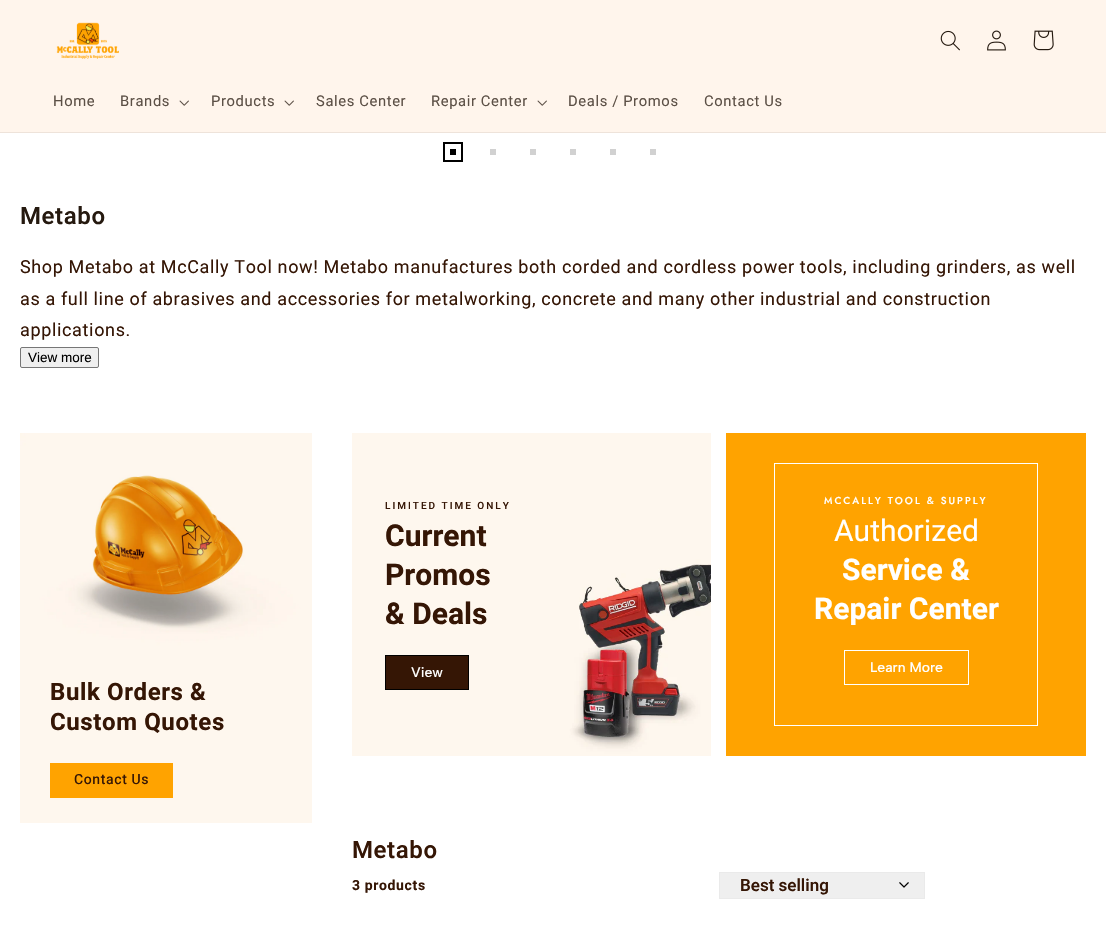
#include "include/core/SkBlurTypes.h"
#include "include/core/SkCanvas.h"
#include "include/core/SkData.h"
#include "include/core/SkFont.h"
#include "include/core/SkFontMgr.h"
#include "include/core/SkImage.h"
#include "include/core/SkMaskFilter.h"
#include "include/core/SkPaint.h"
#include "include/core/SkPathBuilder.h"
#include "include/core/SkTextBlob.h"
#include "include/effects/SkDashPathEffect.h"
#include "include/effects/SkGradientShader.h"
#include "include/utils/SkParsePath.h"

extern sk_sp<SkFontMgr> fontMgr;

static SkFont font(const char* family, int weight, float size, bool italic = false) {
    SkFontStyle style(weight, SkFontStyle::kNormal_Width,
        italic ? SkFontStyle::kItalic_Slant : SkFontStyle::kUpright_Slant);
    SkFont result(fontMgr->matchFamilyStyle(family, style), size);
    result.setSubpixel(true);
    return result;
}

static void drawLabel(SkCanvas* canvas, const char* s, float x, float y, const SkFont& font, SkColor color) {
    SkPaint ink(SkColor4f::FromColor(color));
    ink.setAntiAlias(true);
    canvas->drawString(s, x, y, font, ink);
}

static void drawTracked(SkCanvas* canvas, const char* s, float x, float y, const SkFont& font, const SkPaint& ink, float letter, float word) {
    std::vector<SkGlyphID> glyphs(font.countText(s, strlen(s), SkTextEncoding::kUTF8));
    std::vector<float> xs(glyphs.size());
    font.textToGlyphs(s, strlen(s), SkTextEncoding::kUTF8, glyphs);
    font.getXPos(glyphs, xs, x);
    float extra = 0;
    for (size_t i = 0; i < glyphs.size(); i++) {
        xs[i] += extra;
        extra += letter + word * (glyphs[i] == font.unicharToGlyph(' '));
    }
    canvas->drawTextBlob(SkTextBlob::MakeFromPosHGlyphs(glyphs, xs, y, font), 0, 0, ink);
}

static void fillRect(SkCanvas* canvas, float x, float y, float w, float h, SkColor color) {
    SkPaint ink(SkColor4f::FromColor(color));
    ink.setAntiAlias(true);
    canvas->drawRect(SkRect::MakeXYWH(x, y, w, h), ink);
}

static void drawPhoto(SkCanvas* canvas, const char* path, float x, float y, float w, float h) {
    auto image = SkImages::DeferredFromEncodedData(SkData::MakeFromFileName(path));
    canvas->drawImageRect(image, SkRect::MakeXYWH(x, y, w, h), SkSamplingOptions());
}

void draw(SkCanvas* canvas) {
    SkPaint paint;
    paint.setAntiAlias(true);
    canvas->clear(0xFFFFFFFF);
    fillRect(canvas, 0, 0, 1106, 132, 0xFFFFF5EC);
    fillRect(canvas, 0, 132, 1106, 1, 0xFFEEE3DA);
    drawPhoto(canvas, "assets/img1.png", 56, 22, 63, 37);
    drawPhoto(canvas, "assets/img2.png", 940, 30, 20, 21);
    drawPhoto(canvas, "assets/img3.png", 987, 30, 19, 21);
    drawPhoto(canvas, "assets/img4.png", 1033, 30, 21, 21);
    SkFont font1 = font("Roboto", 400, 14.75f);
    paint.setColor(0xFF5C5046);
    drawTracked(canvas, "Home", 53, 106, font1, paint, 0.63f, 0);
    drawTracked(canvas, "Brands", 120, 106, font1, paint, 0.63f, 0);
    drawPhoto(canvas, "assets/img5.png", 179, 100, 10, 6);
    drawTracked(canvas, "Products", 211, 106, font1, paint, 0.63f, 0);
    drawPhoto(canvas, "assets/img5.png", 284, 100, 10, 6);
    drawTracked(canvas, "Sales Center", 316, 106, font1, paint, 0.63f, 0);
    drawTracked(canvas, "Repair Center", 431, 106, font1, paint, 0.63f, 0);
    drawPhoto(canvas, "assets/img5.png", 537, 100, 10, 6);
    drawTracked(canvas, "Deals / Promos", 568, 106, font1, paint, 0.63f, 0);
    drawTracked(canvas, "Contact Us", 704, 106, font1, paint, 0.63f, 0);
    fillRect(canvas, 450, 149, 6, 6, 0xFF000000);
    paint.setStroke(true);
    paint.setStrokeWidth(2);
    paint.setColor(0xFF000000);
    canvas->drawRect(SkRect::MakeXYWH(444, 143, 18, 18), paint);
    fillRect(canvas, 490, 149, 6, 6, 0xFFD1D1D1);
    fillRect(canvas, 530, 149, 6, 6, 0xFFD1D1D1);
    fillRect(canvas, 570, 149, 6, 6, 0xFFD1D1D1);
    fillRect(canvas, 610, 149, 6, 6, 0xFFD1D1D1);
    fillRect(canvas, 650, 149, 6, 6, 0xFFD1D1D1);
    SkFont font2 = font("Heebo", 600, 24);
    paint.setStroke(false);
    paint.setColor(0xFF25190F);
    drawTracked(canvas, "Metabo", 20, 224, font2, paint, 0.6f, 0);
    SkFont font3 = font("Heebo", 400, 18);
    paint.setColor(0xFF351605);
    drawTracked(canvas, "Shop Metabo at McCally Tool now! Metabo manufactures both corded and cordless power tools, including grinders, as well", 20, 273, font3, paint, 0.63f, 0);
    drawTracked(canvas, "as a full line of abrasives and accessories for metalworking, concrete and many other industrial and construction", 20, 305, font3, paint, 0.63f, 0);
    drawTracked(canvas, "applications.", 20, 336, font3, paint, 0.63f, 0);
    paint.setColor(0xFFEFEFEF);
    canvas->drawRoundRect(SkRect::MakeXYWH(20.5f, 347.5f, 78, 20), 1.5f, 1.5f, paint);
    paint.setStroke(true);
    paint.setStrokeWidth(1);
    paint.setColor(0xFF767676);
    canvas->drawRoundRect(SkRect::MakeXYWH(20.5f, 347.5f, 78, 20), 1.5f, 1.5f, paint);
    SkFont font4 = font("Liberation Sans", 400, 13.5f);
    drawLabel(canvas, "View more", 28, 362, font4, 0xFF000000);
    drawPhoto(canvas, "assets/img6.png", 20, 433, 292, 390);
    SkFont font5 = font("Heebo", 700, 24);
    paint.setStroke(false);
    paint.setColor(0xFF351605);
    drawTracked(canvas, "Bulk Orders &", 50, 700, font5, paint, 0.6f, 0);
    drawTracked(canvas, "Custom Quotes", 50, 730, font5, paint, 0.6f, 0);
    fillRect(canvas, 50, 763, 123, 35, 0xFFFFA300);
    SkFont font6 = font("Heebo", 500, 14);
    drawTracked(canvas, "Contact Us", 74, 784, font6, paint, 0.63f, 0);
    drawPhoto(canvas, "assets/img7.png", 352, 433, 359, 323);
    SkFont font7 = font("Roboto", 500, 10);
    drawTracked(canvas, "LIMITED TIME ONLY", 385, 509, font7, paint, 2, 0);
    SkFont font8 = font("Heebo", 700, 30);
    drawLabel(canvas, "Current", 385, 546, font8, 0xFF351605);
    drawLabel(canvas, "Promos", 385, 585, font8, 0xFF351605);
    drawLabel(canvas, "& Deals", 385, 624, font8, 0xFF351605);
    canvas->drawRect(SkRect::MakeXYWH(385.5f, 655.5f, 83, 34), paint);
    paint.setStroke(true);
    paint.setColor(0xFF000000);
    canvas->drawRect(SkRect::MakeXYWH(385.5f, 655.5f, 83, 34), paint);
    SkFont font9 = font("Albert Sans", 500, 14);
    drawLabel(canvas, "View", 411, 677, font9, 0xFFFFFFFF);
    fillRect(canvas, 726, 433, 360, 323, 0xFFFFA300);
    paint.setColor(0xFFFFFFFF);
    canvas->drawRect(SkRect::MakeXYWH(774.5f, 463.5f, 263, 262), paint);
    SkFont font10 = font("Jost", 500, 10);
    paint.setStroke(false);
    drawTracked(canvas, "MCCALLY TOOL & SUPPLY", 824, 504, font10, paint, 2, 0);
    SkFont font11 = font("Heebo", 400, 30);
    drawLabel(canvas, "Authorized", 834, 541, font11, 0xFFFFFFFF);
    drawLabel(canvas, "Service &", 842, 580, font8, 0xFFFFFFFF);
    drawLabel(canvas, "Repair Center", 814, 619, font8, 0xFFFFFFFF);
    paint.setStroke(true);
    canvas->drawRect(SkRect::MakeXYWH(844.5f, 650.5f, 124, 34), paint);
    drawLabel(canvas, "Learn More", 870, 672, font9, 0xFFFFFFFF);
    paint.setStroke(false);
    paint.setColor(0xFF351605);
    drawTracked(canvas, "Metabo", 352, 858, font2, paint, 0.6f, 0);
    SkFont font12 = font("Heebo", 700, 14);
    drawTracked(canvas, "3 products", 352, 890, font12, paint, 0.63f, 0);
    fillRect(canvas, 720, 873, 204, 25, 0xFFEFEFEF);
    drawPhoto(canvas, "assets/img8.png", 899, 882, 10, 6);
    paint.setStroke(true);
    paint.setColor(0xFFEAEAEA);
    canvas->drawRect(SkRect::MakeXYWH(719.5f, 872.5f, 205, 26), paint);
    SkFont font13 = font("Heebo", 600, 17);
    drawLabel(canvas, "Best selling", 740, 891, font13, 0xFF351605);
}
